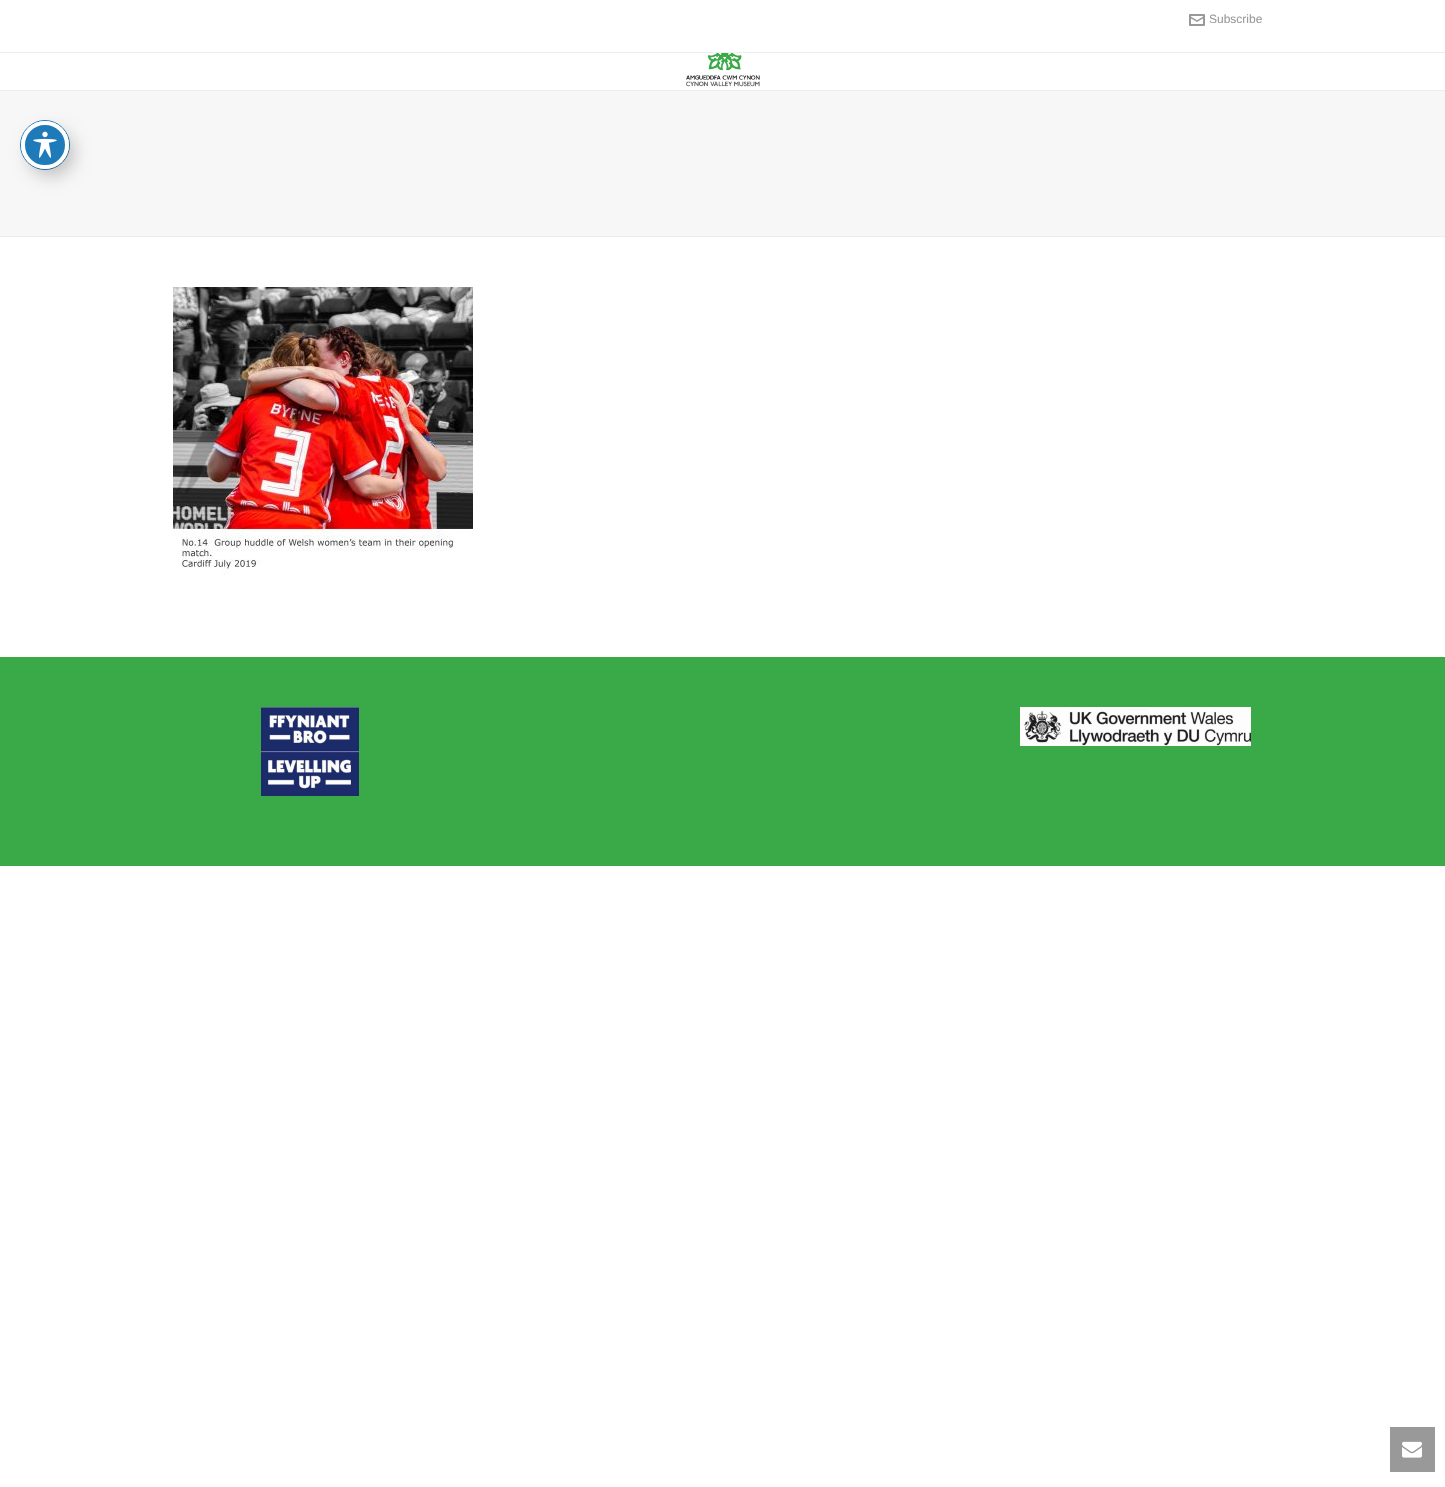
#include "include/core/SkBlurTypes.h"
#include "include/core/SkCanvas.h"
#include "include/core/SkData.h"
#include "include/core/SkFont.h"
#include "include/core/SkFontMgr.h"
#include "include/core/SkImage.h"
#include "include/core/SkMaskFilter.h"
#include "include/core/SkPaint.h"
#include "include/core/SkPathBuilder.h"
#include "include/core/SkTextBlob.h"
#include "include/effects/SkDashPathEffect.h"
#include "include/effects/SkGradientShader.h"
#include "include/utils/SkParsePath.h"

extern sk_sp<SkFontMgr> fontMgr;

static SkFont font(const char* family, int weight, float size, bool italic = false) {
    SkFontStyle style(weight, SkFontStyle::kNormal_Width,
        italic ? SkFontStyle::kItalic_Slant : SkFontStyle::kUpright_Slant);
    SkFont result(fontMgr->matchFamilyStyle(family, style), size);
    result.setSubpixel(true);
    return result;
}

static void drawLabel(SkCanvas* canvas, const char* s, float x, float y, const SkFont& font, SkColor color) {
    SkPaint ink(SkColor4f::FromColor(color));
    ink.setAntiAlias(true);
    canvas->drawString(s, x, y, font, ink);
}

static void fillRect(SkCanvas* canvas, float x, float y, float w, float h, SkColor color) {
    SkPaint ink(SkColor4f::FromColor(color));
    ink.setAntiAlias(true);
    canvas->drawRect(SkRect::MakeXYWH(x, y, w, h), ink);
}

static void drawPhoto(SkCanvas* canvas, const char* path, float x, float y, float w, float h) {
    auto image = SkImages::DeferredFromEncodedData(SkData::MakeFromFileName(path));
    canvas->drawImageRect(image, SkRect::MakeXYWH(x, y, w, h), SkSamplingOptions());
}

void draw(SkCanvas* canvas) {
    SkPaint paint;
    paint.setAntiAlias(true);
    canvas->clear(0xFFFFFFFF);
    fillRect(canvas, 0, 91, 1445, 145, 0xFFF7F7F7);
    fillRect(canvas, 0, 236, 1445, 1, 0xFFEDEDED);
    drawPhoto(canvas, "assets/img1.png", 1189, 14, 16, 12);
    SkFont font1 = font("Liberation Sans", 400, 12);
    drawLabel(canvas, "Subscribe", 1209, 23, font1, 0xFF999999);
    fillRect(canvas, 0, 90, 1445, 1, 0xFFEDEDED);
    fillRect(canvas, 0, 52, 1445, 1, 0xFFEDEDED);
    drawPhoto(canvas, "assets/img2.png", 686, 53, 74, 34);
    drawPhoto(canvas, "assets/img3.png", 173, 287, 300, 288);
    fillRect(canvas, 0, 657, 1445, 209, 0xFF39AA47);
    drawPhoto(canvas, "assets/img4.png", 261, 707, 98, 89);
    drawPhoto(canvas, "assets/img5.png", 1020, 707, 231, 39);
    paint.setStroke(true);
    paint.setStrokeWidth(1);
    paint.setColor(0xFF1E7AB9);
    canvas->drawCircle(45, 145, 24.5f, paint);
    paint.setStroke(false);
    paint.setColor(0x33000000);
    paint.setMaskFilter(SkMaskFilter::MakeBlur(kNormal_SkBlurStyle, 8));
    canvas->drawRoundRect(SkRect::MakeXYWH(27, 129, 48, 48), 24, 24, paint);
    paint.setMaskFilter(nullptr);
    paint.setColor(0xFF1E7AB9);
    canvas->drawCircle(45, 145, 22, paint);
    paint.setStroke(true);
    paint.setStrokeWidth(4);
    paint.setColor(0xFFFFFFFF);
    canvas->drawCircle(45, 145, 22, paint);
    drawPhoto(canvas, "assets/img6.png", 33, 131, 24, 27);
    fillRect(canvas, 1390, 1427, 45, 45, 0xFF999999);
    drawPhoto(canvas, "assets/img7.png", 1402, 1441, 20, 17);
}
